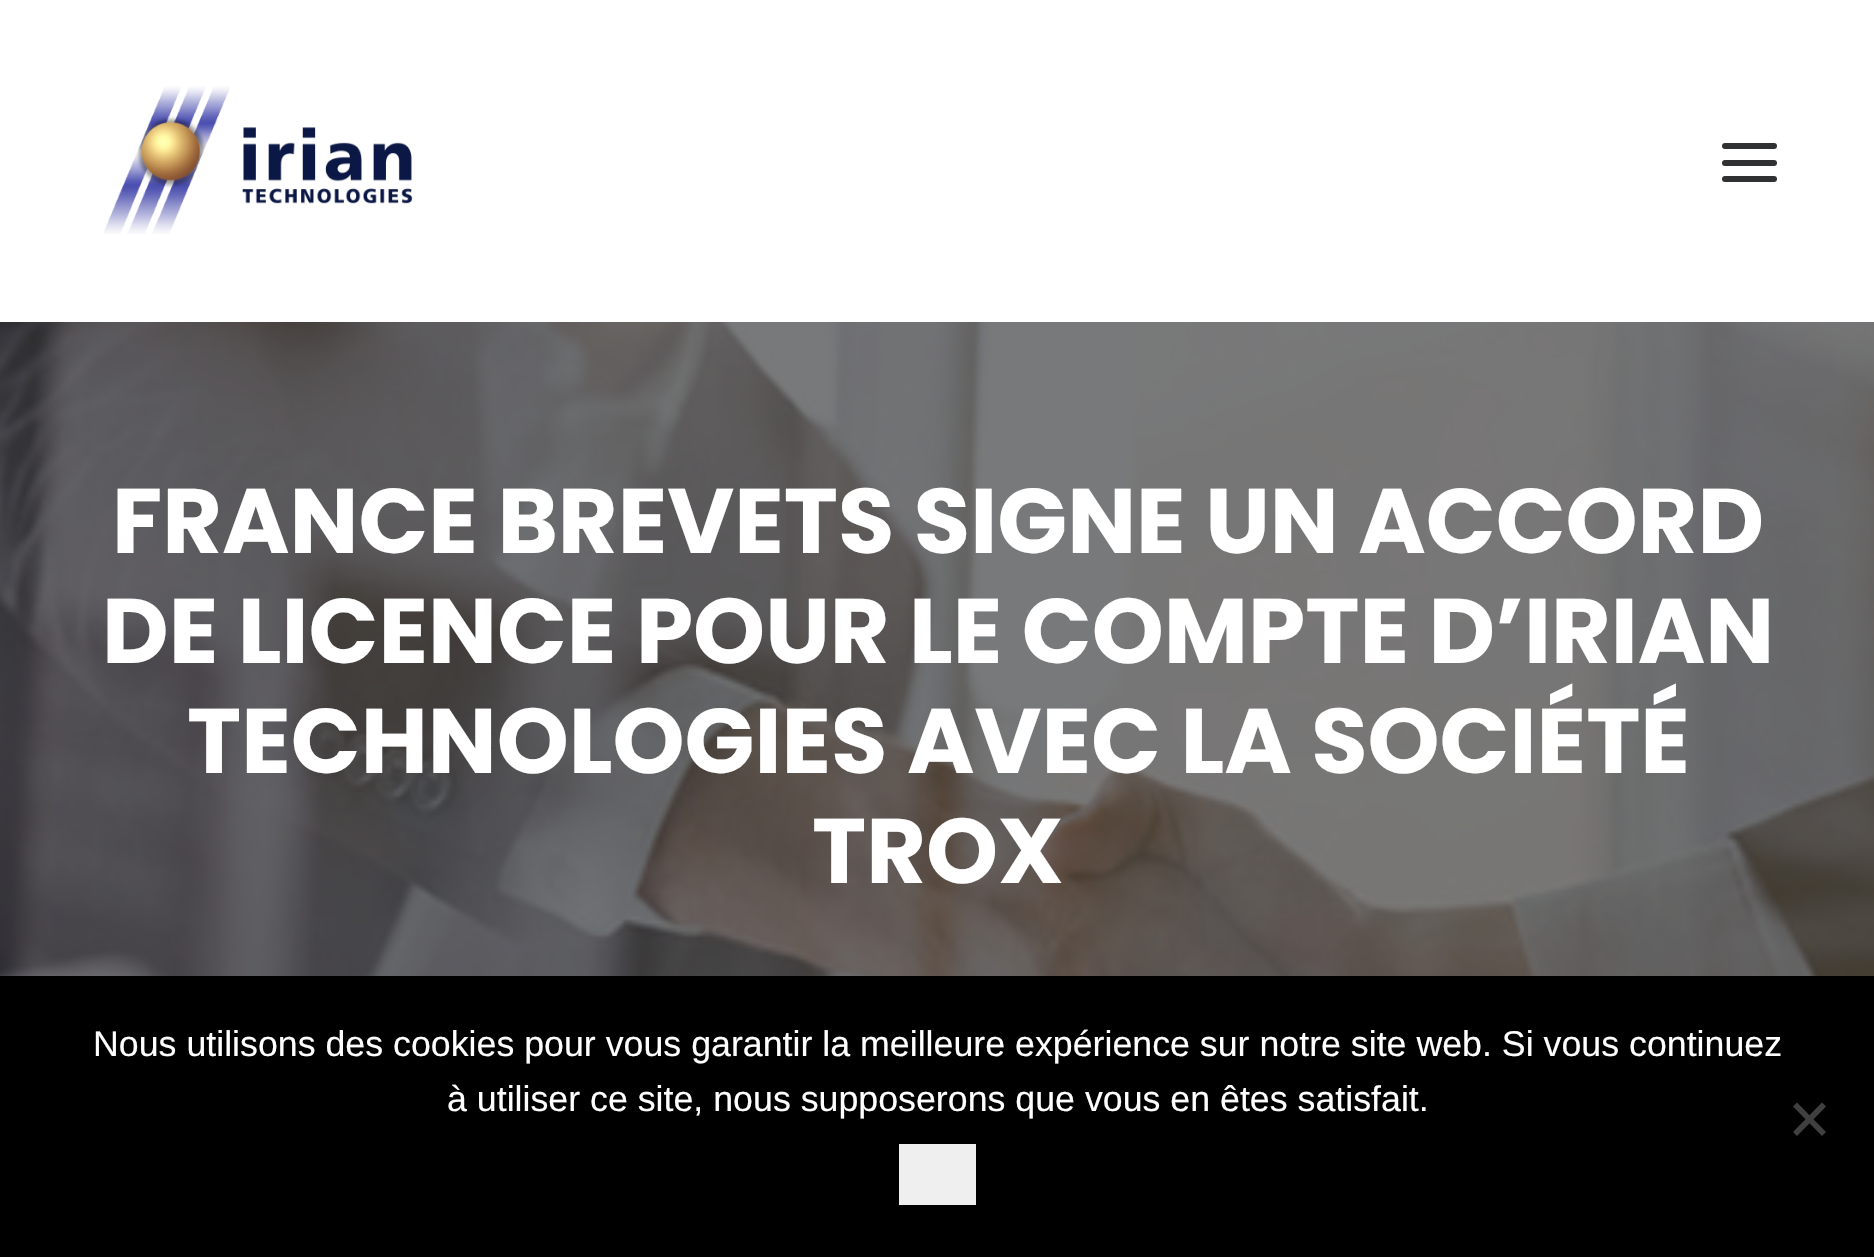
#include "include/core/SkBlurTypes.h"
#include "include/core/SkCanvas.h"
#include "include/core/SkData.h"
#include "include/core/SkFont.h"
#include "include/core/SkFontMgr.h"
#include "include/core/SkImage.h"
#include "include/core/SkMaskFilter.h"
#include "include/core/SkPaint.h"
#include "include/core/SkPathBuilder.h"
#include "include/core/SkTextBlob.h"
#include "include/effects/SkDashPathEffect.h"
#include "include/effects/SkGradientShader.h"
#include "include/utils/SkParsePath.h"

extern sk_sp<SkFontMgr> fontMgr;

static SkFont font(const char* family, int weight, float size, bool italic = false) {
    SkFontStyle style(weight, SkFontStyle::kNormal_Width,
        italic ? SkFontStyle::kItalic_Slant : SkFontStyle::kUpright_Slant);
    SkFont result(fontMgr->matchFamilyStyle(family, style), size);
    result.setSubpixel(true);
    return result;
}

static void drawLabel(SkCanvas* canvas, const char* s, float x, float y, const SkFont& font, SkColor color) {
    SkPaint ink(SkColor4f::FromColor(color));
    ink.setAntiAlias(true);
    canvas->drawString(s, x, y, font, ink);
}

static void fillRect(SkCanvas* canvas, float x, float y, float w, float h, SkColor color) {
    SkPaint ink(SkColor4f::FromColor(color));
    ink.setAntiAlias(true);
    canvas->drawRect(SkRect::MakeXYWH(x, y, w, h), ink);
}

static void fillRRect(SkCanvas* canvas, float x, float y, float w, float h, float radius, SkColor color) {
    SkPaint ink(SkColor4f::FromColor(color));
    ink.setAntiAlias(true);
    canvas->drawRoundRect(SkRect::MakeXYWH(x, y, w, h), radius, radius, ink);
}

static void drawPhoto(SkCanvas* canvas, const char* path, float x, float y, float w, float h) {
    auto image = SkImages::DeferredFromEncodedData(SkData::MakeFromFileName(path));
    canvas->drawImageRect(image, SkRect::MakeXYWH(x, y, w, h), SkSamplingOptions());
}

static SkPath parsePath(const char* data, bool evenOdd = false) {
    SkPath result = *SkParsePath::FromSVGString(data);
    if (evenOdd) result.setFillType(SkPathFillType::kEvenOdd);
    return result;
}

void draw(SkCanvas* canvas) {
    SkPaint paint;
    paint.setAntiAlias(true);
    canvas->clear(0xFFFFFFFF);
    drawPhoto(canvas, "assets/img1.png", 103, 86, 310, 148);
    fillRRect(canvas, 1722, 160, 55, 6, 3, 0xFF303133);
    fillRRect(canvas, 1722, 143, 55, 6, 3, 0xFF303133);
    fillRRect(canvas, 1722, 176, 55, 6, 3, 0xFF303133);
    drawPhoto(canvas, "assets/img2.png", 0, 322, 1874, 654);
    SkFont font1 = font("Poppins", 700, 91.7f);
    drawLabel(canvas, "FRANCE BREVETS SIGNE UN ACCORD", 112, 553, font1, 0xFFFFFFFF);
    drawLabel(canvas, "DE LICENCE POUR LE COMPTE D’IRIAN", 102, 663, font1, 0xFFFFFFFF);
    drawLabel(canvas, "TECHNOLOGIES AVEC LA SOCIÉTÉ", 187, 773, font1, 0xFFFFFFFF);
    drawLabel(canvas, "TROX", 812, 883, font1, 0xFFFFFFFF);
    fillRect(canvas, 0, 976, 1874, 281, 0xFF000000);
    SkFont font2 = font("Liberation Sans", 400, 35.75f);
    drawLabel(canvas, "Nous utilisons des cookies pour vous garantir la meilleure expérience sur notre site web. Si vous continuez", 93, 1056, font2, 0xFFFFFFFF);
    drawLabel(canvas, "à utiliser ce site, nous supposerons que vous en êtes satisfait.", 447, 1111, font2, 0xFFFFFFFF);
    paint.setColor(0xFF404040);
    canvas->drawPath(parsePath("M1822 1102.5L1826 1106.5L1797 1136L1793 1132Z"), paint);
    canvas->drawPath(parsePath("M1793 1106.5L1797 1102.5L1826 1132L1822 1136Z"), paint);
    fillRect(canvas, 899, 1144, 77, 61, 0xFFEFEFEF);
}
